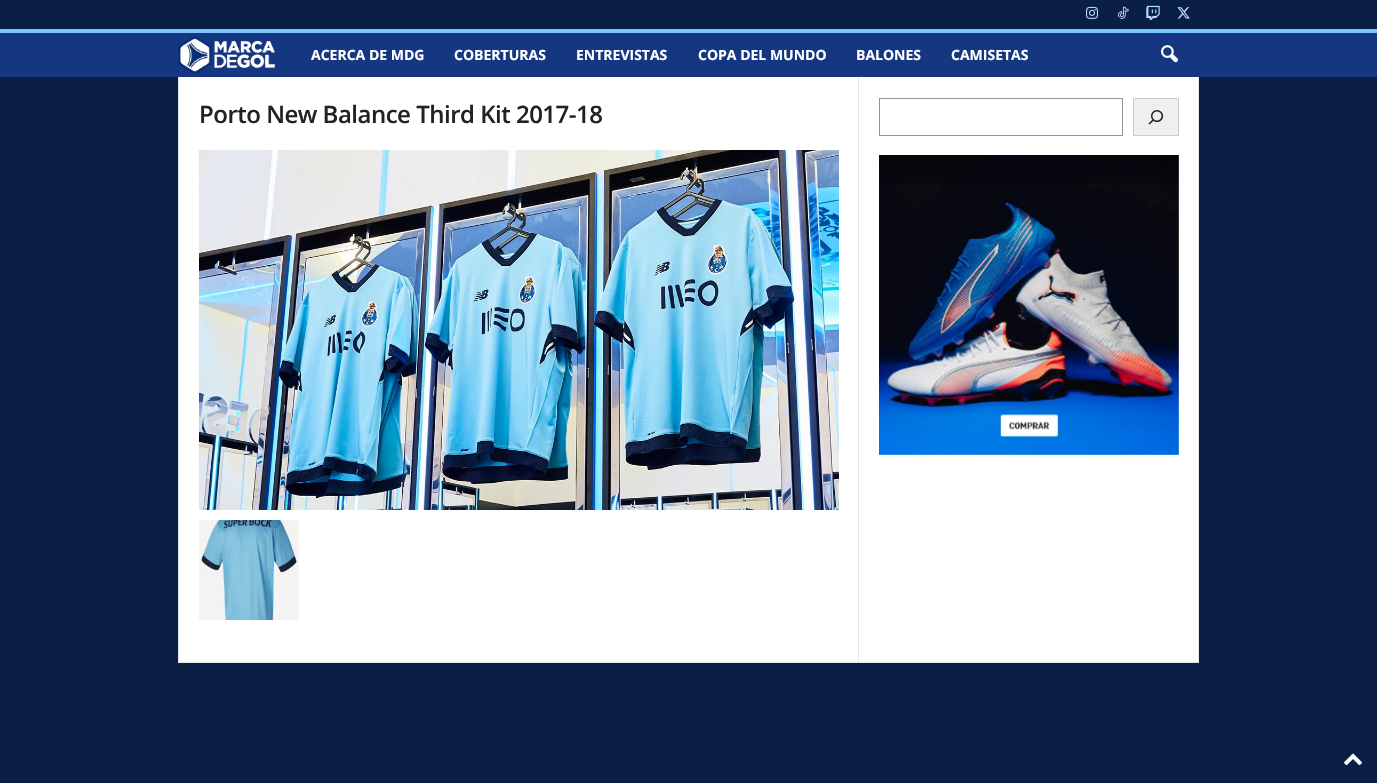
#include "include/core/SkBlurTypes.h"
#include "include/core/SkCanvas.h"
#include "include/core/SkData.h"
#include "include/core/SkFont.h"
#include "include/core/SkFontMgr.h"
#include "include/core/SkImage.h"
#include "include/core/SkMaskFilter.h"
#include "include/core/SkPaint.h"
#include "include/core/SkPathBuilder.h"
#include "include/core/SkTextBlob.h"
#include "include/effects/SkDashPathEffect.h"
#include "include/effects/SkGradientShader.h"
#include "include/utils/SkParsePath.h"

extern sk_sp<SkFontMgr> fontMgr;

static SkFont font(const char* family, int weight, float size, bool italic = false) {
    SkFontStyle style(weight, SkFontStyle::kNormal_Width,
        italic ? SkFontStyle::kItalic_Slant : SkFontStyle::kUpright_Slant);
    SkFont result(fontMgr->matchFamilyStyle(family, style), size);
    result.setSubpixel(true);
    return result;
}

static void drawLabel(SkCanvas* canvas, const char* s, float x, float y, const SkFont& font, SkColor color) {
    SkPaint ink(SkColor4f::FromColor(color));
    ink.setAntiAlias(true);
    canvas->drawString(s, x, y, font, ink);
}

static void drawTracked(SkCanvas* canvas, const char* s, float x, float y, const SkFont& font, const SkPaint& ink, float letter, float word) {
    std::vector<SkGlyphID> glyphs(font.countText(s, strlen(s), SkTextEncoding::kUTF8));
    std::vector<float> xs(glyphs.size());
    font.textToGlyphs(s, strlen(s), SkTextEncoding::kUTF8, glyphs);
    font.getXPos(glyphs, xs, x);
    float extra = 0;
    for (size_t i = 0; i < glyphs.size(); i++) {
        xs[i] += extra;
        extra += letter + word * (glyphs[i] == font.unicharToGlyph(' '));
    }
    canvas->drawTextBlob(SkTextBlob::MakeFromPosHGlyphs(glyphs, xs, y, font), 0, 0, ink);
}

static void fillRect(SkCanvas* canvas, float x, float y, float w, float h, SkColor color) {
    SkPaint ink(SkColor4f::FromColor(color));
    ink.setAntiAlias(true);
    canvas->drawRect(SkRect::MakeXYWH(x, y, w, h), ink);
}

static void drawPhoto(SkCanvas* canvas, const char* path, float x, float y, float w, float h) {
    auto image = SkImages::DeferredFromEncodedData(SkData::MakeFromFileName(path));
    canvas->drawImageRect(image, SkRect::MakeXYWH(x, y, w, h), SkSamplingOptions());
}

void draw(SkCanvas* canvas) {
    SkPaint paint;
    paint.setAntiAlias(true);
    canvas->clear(0xFF0A1E46);
    drawPhoto(canvas, "assets/img1.png", 1086, 6, 12, 13);
    drawPhoto(canvas, "assets/img2.png", 1118, 6, 11, 13);
    drawPhoto(canvas, "assets/img3.png", 1146, 5, 14, 15);
    drawPhoto(canvas, "assets/img4.png", 1177, 7, 13, 12);
    fillRect(canvas, 0, 33, 1377, 44, 0xFF153781);
    fillRect(canvas, 0, 29, 1377, 4, 0xFF7CC6FF);
    drawPhoto(canvas, "assets/img5.png", 178, 36, 97, 38);
    SkFont font1 = font("Open Sans", 700, 14);
    drawLabel(canvas, "ACERCA DE MDG", 311, 60, font1, 0xFFFFFFFF);
    drawLabel(canvas, "COBERTURAS", 454, 60, font1, 0xFFFFFFFF);
    drawLabel(canvas, "ENTREVISTAS", 576, 60, font1, 0xFFFFFFFF);
    drawLabel(canvas, "COPA DEL MUNDO", 698, 60, font1, 0xFFFFFFFF);
    drawLabel(canvas, "BALONES", 856, 60, font1, 0xFFFFFFFF);
    drawLabel(canvas, "CAMISETAS", 951, 60, font1, 0xFFFFFFFF);
    drawPhoto(canvas, "assets/img6.png", 1161, 45, 17, 18);
    fillRect(canvas, 179, 77, 1019, 585, 0xFFFFFFFF);
    fillRect(canvas, 178, 662, 1021, 1, 0xFFE6E6E6);
    fillRect(canvas, 178, 77, 1, 585, 0xFFE6E6E6);
    SkFont font2 = font("Open Sans", 600, 24);
    paint.setColor(0xFF222222);
    drawTracked(canvas, "Porto New Balance Third Kit 2017-18", 199, 123, font2, paint, -0.5f, 0);
    drawPhoto(canvas, "assets/img7.png", 199, 150, 640, 360);
    drawPhoto(canvas, "assets/img8.png", 199, 520, 100, 100);
    fillRect(canvas, 858, 77, 1, 585, 0xFFE6E6E6);
    paint.setStroke(true);
    paint.setStrokeWidth(1);
    paint.setColor(0xFF949494);
    canvas->drawRect(SkRect::MakeXYWH(879.5f, 98.5f, 243, 37), paint);
    paint.setStroke(false);
    paint.setColor(0xFFEFEFEF);
    canvas->drawRect(SkRect::MakeXYWH(1133.5f, 98.5f, 45, 37), paint);
    paint.setStroke(true);
    paint.setColor(0xFFCCCCCC);
    canvas->drawRect(SkRect::MakeXYWH(1133.5f, 98.5f, 45, 37), paint);
    drawPhoto(canvas, "assets/img9.png", 1148, 110, 16, 15);
    drawPhoto(canvas, "assets/img10.png", 879, 155, 300, 300);
    fillRect(canvas, 1198, 77, 1, 585, 0xFFE6E6E6);
    drawPhoto(canvas, "assets/img11.png", 1344, 753, 18, 13);
}
